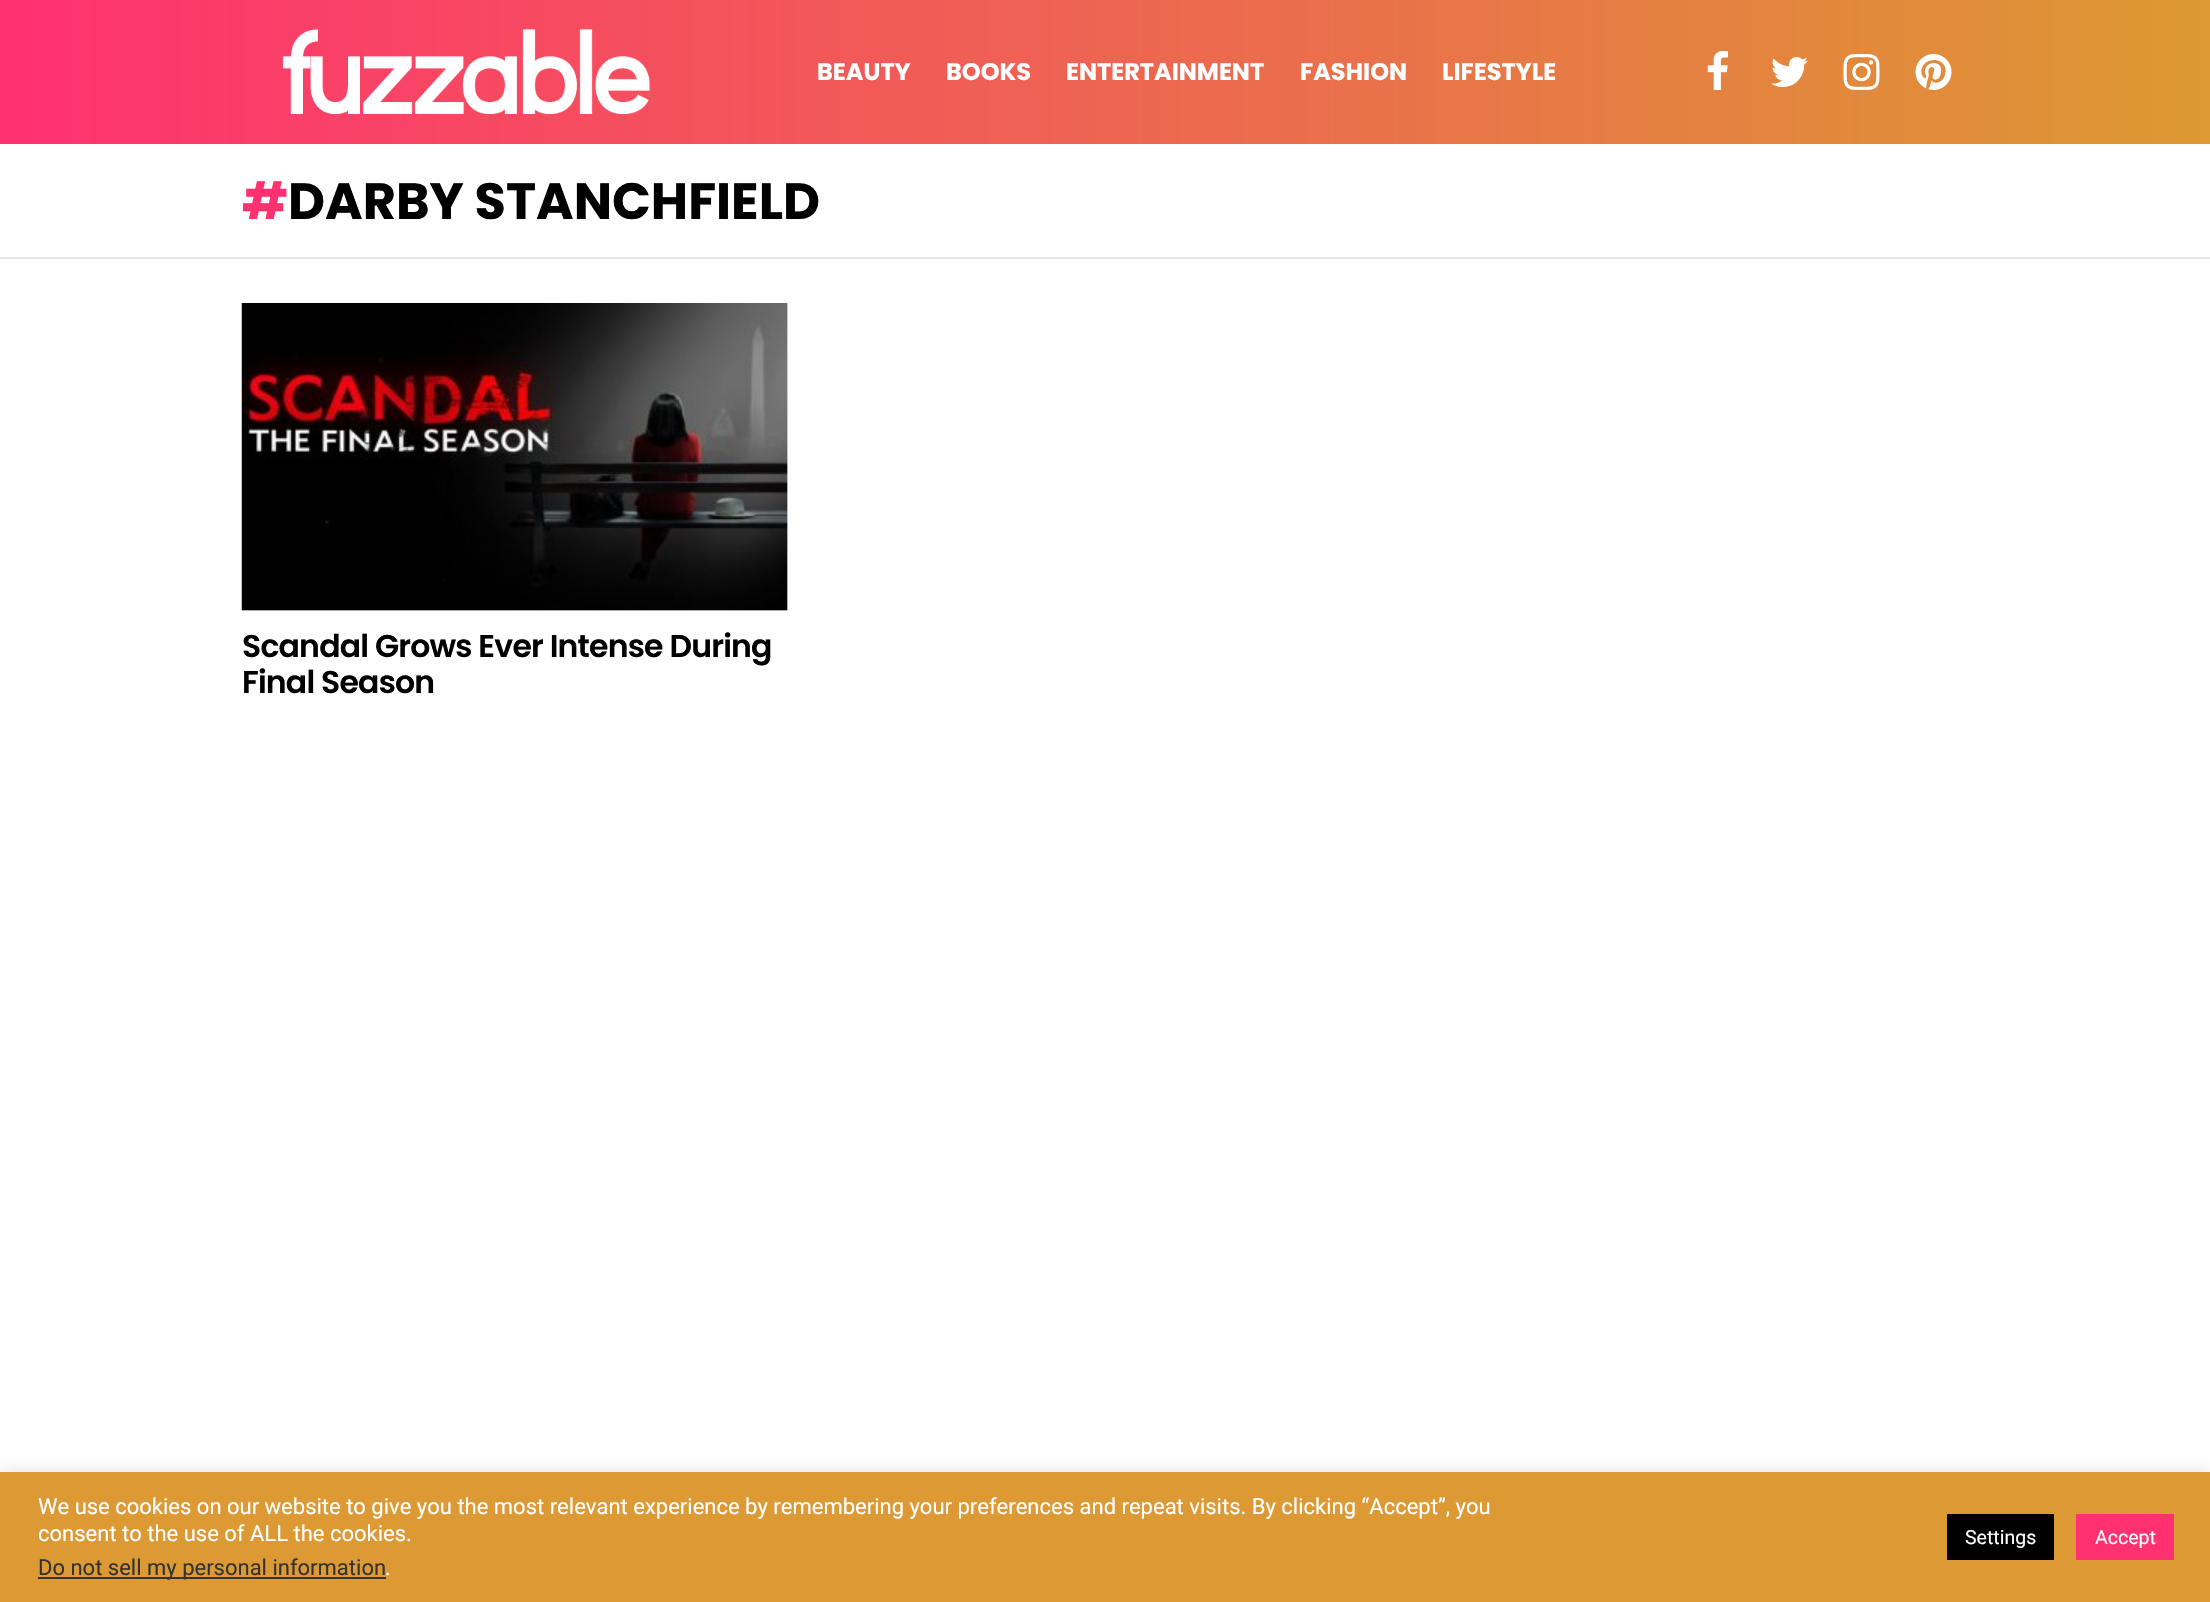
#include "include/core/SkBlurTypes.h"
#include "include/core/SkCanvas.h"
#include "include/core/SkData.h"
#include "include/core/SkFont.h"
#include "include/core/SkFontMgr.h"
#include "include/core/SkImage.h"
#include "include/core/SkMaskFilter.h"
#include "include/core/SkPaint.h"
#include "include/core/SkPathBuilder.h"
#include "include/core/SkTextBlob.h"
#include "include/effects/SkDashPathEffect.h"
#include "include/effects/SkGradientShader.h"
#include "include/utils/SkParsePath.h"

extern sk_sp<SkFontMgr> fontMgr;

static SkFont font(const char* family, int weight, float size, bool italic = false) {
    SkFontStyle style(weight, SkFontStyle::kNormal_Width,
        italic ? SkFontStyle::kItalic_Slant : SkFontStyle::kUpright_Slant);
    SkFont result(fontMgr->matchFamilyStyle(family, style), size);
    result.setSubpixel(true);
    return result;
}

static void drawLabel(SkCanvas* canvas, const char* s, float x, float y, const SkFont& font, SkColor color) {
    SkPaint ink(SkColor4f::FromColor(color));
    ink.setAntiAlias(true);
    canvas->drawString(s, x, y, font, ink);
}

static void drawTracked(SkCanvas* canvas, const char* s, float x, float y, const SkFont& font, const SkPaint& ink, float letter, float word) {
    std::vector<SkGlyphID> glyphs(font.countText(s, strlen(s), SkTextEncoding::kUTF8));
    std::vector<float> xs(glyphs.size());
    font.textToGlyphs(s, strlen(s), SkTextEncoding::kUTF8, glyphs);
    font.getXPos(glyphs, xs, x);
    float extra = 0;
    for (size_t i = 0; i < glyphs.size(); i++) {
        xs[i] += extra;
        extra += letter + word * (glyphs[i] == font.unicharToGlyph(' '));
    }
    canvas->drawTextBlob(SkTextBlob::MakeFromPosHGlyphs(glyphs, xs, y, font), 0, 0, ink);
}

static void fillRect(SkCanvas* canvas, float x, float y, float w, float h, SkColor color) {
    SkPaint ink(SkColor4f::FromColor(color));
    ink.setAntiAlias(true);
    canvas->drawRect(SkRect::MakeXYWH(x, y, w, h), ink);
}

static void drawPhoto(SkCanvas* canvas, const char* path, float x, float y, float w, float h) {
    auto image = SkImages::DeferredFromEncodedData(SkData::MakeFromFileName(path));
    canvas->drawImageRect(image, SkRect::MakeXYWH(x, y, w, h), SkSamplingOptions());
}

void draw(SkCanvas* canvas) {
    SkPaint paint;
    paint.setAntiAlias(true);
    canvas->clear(0xFFFFFFFF);
    {
        const SkColor colors[] = {0xFFFF3170, 0xFFDD9933};
        const float stops[] = {0, 1};
        const SkPoint ends[] = {{0, 72}, {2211, 72}};
        paint.setShader(SkGradientShader::MakeLinear(ends, colors, stops, 2, SkTileMode::kClamp));
        paint.setAlpha(255);
    }
    canvas->drawRect(SkRect::MakeXYWH(0, 0, 2210, 144), paint);
    drawPhoto(canvas, "assets/img1.png", 282, 29, 368, 85);
    SkFont font1 = font("Poppins", 700, 24);
    drawLabel(canvas, "BEAUTY", 817, 80, font1, 0xFFFFFFFF);
    drawLabel(canvas, "BOOKS", 946, 80, font1, 0xFFFFFFFF);
    drawLabel(canvas, "ENTERTAINMENT", 1066, 80, font1, 0xFFFFFFFF);
    drawLabel(canvas, "FASHION", 1300, 80, font1, 0xFFFFFFFF);
    drawLabel(canvas, "LIFESTYLE", 1442, 80, font1, 0xFFFFFFFF);
    drawPhoto(canvas, "assets/img2.png", 1707, 51, 21, 39);
    drawPhoto(canvas, "assets/img3.png", 1771, 57, 37, 30);
    drawPhoto(canvas, "assets/img4.png", 1843, 54, 37, 36);
    drawPhoto(canvas, "assets/img5.png", 1915, 54, 37, 36);
    SkFont font2 = font("Poppins", 700, 51);
    drawLabel(canvas, "#", 242, 219, font2, 0xFFFF3170);
    drawLabel(canvas, "DARBY STANCHFIELD", 288, 219, font2, 0xFF000000);
    fillRect(canvas, 0, 257, 2210, 2, 0xFFE6E6E6);
    fillRect(canvas, 242, 303, 546, 308, 0xFFE6E6E6);
    drawPhoto(canvas, "assets/img6.png", 241, 303, 547, 308);
    SkFont font3 = font("Poppins", 600, 31.5f);
    paint.setShader(nullptr);
    paint.setColor(0xFF000000);
    drawTracked(canvas, "Scandal Grows Ever Intense During", 242, 657, font3, paint, -0.8f, 0);
    drawTracked(canvas, "Final Season", 242, 693, font3, paint, -0.8f, 0);
    paint.setColor(0x4DACABAB);
    paint.setMaskFilter(SkMaskFilter::MakeBlur(kNormal_SkBlurStyle, 7.5f));
    canvas->drawRect(SkRect::MakeXYWH(0, 1470, 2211, 131), paint);
    paint.setMaskFilter(nullptr);
    fillRect(canvas, 0, 1472, 2210, 130, 0xFFDD9933);
    SkFont font4 = font("Roboto", 400, 22);
    drawLabel(canvas, "We use cookies on our website to give you the most relevant experience by remembering your preferences and repeat visits. By clicking “Accept”, you", 38, 1514, font4, 0xFFFFFFFF);
    drawLabel(canvas, "consent to the use of ALL the cookies.", 38, 1541, font4, 0xFFFFFFFF);
    fillRect(canvas, 38, 1577, 348, 2, 0xFF333333);
    drawLabel(canvas, "Do not sell my personal information", 38, 1575, font4, 0xFF333333);
    drawLabel(canvas, ".", 385, 1575, font4, 0xFFFFFFFF);
    fillRect(canvas, 1947, 1514, 107, 46, 0xFF000000);
    SkFont font5 = font("Roboto", 400, 19.5f);
    drawLabel(canvas, "Settings", 1965, 1544, font5, 0xFFFFFFFF);
    fillRect(canvas, 2076, 1514, 98, 46, 0xFFFF3170);
    drawLabel(canvas, "Accept", 2095, 1544, font5, 0xFFFFFFFF);
}
